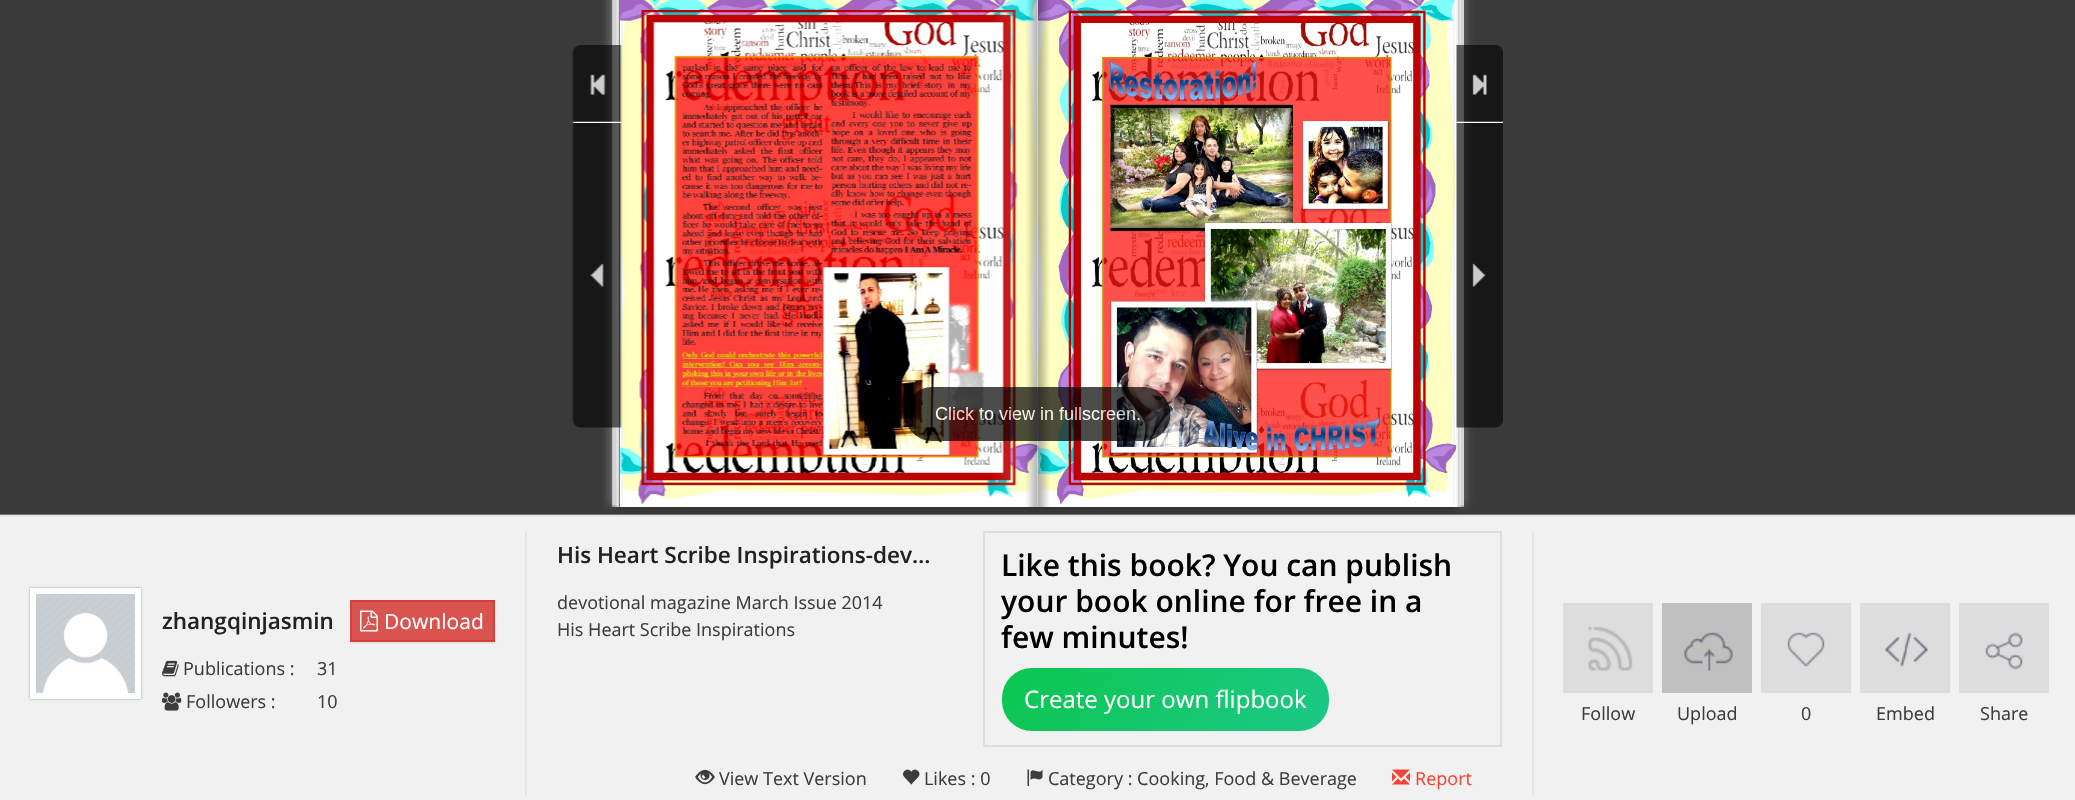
#include "include/core/SkBlurTypes.h"
#include "include/core/SkCanvas.h"
#include "include/core/SkData.h"
#include "include/core/SkFont.h"
#include "include/core/SkFontMgr.h"
#include "include/core/SkImage.h"
#include "include/core/SkMaskFilter.h"
#include "include/core/SkPaint.h"
#include "include/core/SkPathBuilder.h"
#include "include/core/SkTextBlob.h"
#include "include/effects/SkDashPathEffect.h"
#include "include/effects/SkGradientShader.h"
#include "include/utils/SkParsePath.h"

extern sk_sp<SkFontMgr> fontMgr;

static SkFont font(const char* family, int weight, float size, bool italic = false) {
    SkFontStyle style(weight, SkFontStyle::kNormal_Width,
        italic ? SkFontStyle::kItalic_Slant : SkFontStyle::kUpright_Slant);
    SkFont result(fontMgr->matchFamilyStyle(family, style), size);
    result.setSubpixel(true);
    return result;
}

static void drawLabel(SkCanvas* canvas, const char* s, float x, float y, const SkFont& font, SkColor color) {
    SkPaint ink(SkColor4f::FromColor(color));
    ink.setAntiAlias(true);
    canvas->drawString(s, x, y, font, ink);
}

static void fillRect(SkCanvas* canvas, float x, float y, float w, float h, SkColor color) {
    SkPaint ink(SkColor4f::FromColor(color));
    ink.setAntiAlias(true);
    canvas->drawRect(SkRect::MakeXYWH(x, y, w, h), ink);
}

static void drawPhoto(SkCanvas* canvas, const char* path, float x, float y, float w, float h) {
    auto image = SkImages::DeferredFromEncodedData(SkData::MakeFromFileName(path));
    canvas->drawImageRect(image, SkRect::MakeXYWH(x, y, w, h), SkSamplingOptions());
}

void draw(SkCanvas* canvas) {
    SkPaint paint;
    paint.setAntiAlias(true);
    canvas->clear(0xFF7C7C7C);
    drawPhoto(canvas, "assets/img1.png", 0, 0, 2075, 515);
    fillRect(canvas, 0, 517, 2075, 283, 0xFFF1F1F1);
    fillRect(canvas, 0, 515, 2075, 2, 0xFFE6E6E6);
    paint.setColor(0xFF5CB85C);
    paint.setMaskFilter(SkMaskFilter::MakeBlur(kNormal_SkBlurStyle, 1));
    canvas->drawRect(SkRect::MakeXYWH(30, 588, 111, 111), paint);
    paint.setMaskFilter(nullptr);
    paint.setStroke(true);
    paint.setStrokeWidth(6);
    paint.setColor(0xFFFFFFFF);
    canvas->drawRect(SkRect::MakeXYWH(33, 591, 105, 105), paint);
    drawPhoto(canvas, "assets/img2.png", 36, 594, 99, 99);
    SkFont font1 = font("Open Sans", 600, 22.5f);
    drawLabel(canvas, "zhangqinjasmin", 162, 629, font1, 0xFF222222);
    fillRect(canvas, 350, 642, 145, 2, 0xFFE5E5E5);
    paint.setStroke(false);
    paint.setColor(0xFFD9534F);
    canvas->drawRect(SkRect::MakeXYWH(351, 601, 143, 40), paint);
    paint.setStroke(true);
    paint.setStrokeWidth(2);
    paint.setColor(0xFFD43F3A);
    canvas->drawRect(SkRect::MakeXYWH(351, 601, 143, 40), paint);
    drawPhoto(canvas, "assets/img3.png", 360, 610, 18, 22);
    SkFont font2 = font("Open Sans", 400, 21);
    drawLabel(canvas, "Download", 384, 629, font2, 0xFFFFFFFF);
    drawPhoto(canvas, "assets/img4.png", 162, 660, 17, 17);
    SkFont font3 = font("Open Sans", 400, 18);
    drawLabel(canvas, "Publications :", 183, 675, font3, 0xFF3C3C3C);
    drawLabel(canvas, "31", 317, 675, font3, 0xFF3C3C3C);
    drawPhoto(canvas, "assets/img5.png", 162, 692, 20, 19);
    drawLabel(canvas, "Followers :", 186, 708, font3, 0xFF3C3C3C);
    drawLabel(canvas, "10", 317, 708, font3, 0xFF3C3C3C);
    fillRect(canvas, 1532, 531, 2, 264, 0xFFE6E6E6);
    fillRect(canvas, 525, 531, 2, 264, 0xFFE6E6E6);
    drawLabel(canvas, "His Heart Scribe Inspirations-dev…", 557, 563, font1, 0xFF222222);
    drawLabel(canvas, "devotional magazine March Issue 2014", 557, 609, font3, 0xFF3C3C3C);
    drawLabel(canvas, "His Heart Scribe Inspirations", 557, 636, font3, 0xFF3C3C3C);
    paint.setColor(0xFFDDDDDD);
    canvas->drawRect(SkRect::MakeXYWH(984, 532, 517, 214), paint);
    SkFont font4 = font("Open Sans", 600, 30);
    drawLabel(canvas, "Like this book? You can publish", 1001, 576, font4, 0xFF000000);
    drawLabel(canvas, "your book online for free in a", 1001, 612, font4, 0xFF000000);
    drawLabel(canvas, "few minutes!", 1001, 648, font4, 0xFF000000);
    paint.setStroke(false);
    {
        const SkColor colors[] = {0xFF0BC74E, 0xFF1CC888};
        const float stops[] = {0, 1};
        const SkPoint ends[] = {{1041, 612}, {1290, 786}};
        paint.setShader(SkGradientShader::MakeLinear(ends, colors, stops, 2, SkTileMode::kClamp));
        paint.setAlpha(255);
    }
    canvas->drawRoundRect(SkRect::MakeXYWH(1002, 668, 327, 63), 30, 30, paint);
    SkFont font5 = font("Open Sans", 400, 24);
    drawLabel(canvas, "Create your own flipbook", 1024, 708, font5, 0xFFFFFFFF);
    drawPhoto(canvas, "assets/img6.png", 695, 769, 20, 16);
    drawLabel(canvas, "View Text Version", 719, 785, font3, 0xFF3C3C3C);
    drawPhoto(canvas, "assets/img7.png", 903, 769, 17, 16);
    drawLabel(canvas, "Likes : 0", 924, 785, font3, 0xFF3C3C3C);
    drawPhoto(canvas, "assets/img8.png", 1027, 769, 16, 17);
    drawLabel(canvas, "Category : Cooking, Food & Beverage", 1048, 785, font3, 0xFF3C3C3C);
    drawPhoto(canvas, "assets/img9.png", 1392, 769, 18, 16);
    drawLabel(canvas, "Report", 1415, 785, font3, 0xFFF44336);
    fillRect(canvas, 1563, 603, 90, 90, 0xFFDDDDDD);
    drawPhoto(canvas, "assets/img10.png", 1588, 626, 45, 45);
    drawLabel(canvas, "Follow", 1581, 720, font3, 0xFF3C3C3C);
    fillRect(canvas, 1662, 603, 90, 90, 0xFFC0C0C0);
    drawPhoto(canvas, "assets/img11.png", 1684, 632, 49, 40);
    drawLabel(canvas, "Upload", 1677, 720, font3, 0xFF3C3C3C);
    fillRect(canvas, 1761, 603, 90, 90, 0xFFDDDDDD);
    drawPhoto(canvas, "assets/img12.png", 1787, 632, 38, 35);
    drawLabel(canvas, "0", 1801, 720, font3, 0xFF3C3C3C);
    fillRect(canvas, 1860, 603, 90, 90, 0xFFDDDDDD);
    drawPhoto(canvas, "assets/img13.png", 1885, 632, 43, 35);
    drawLabel(canvas, "Embed", 1876, 720, font3, 0xFF3C3C3C);
    fillRect(canvas, 1959, 603, 90, 90, 0xFFDDDDDD);
    drawPhoto(canvas, "assets/img14.png", 1985, 632, 38, 38);
    drawLabel(canvas, "Share", 1980, 720, font3, 0xFF3C3C3C);
}
